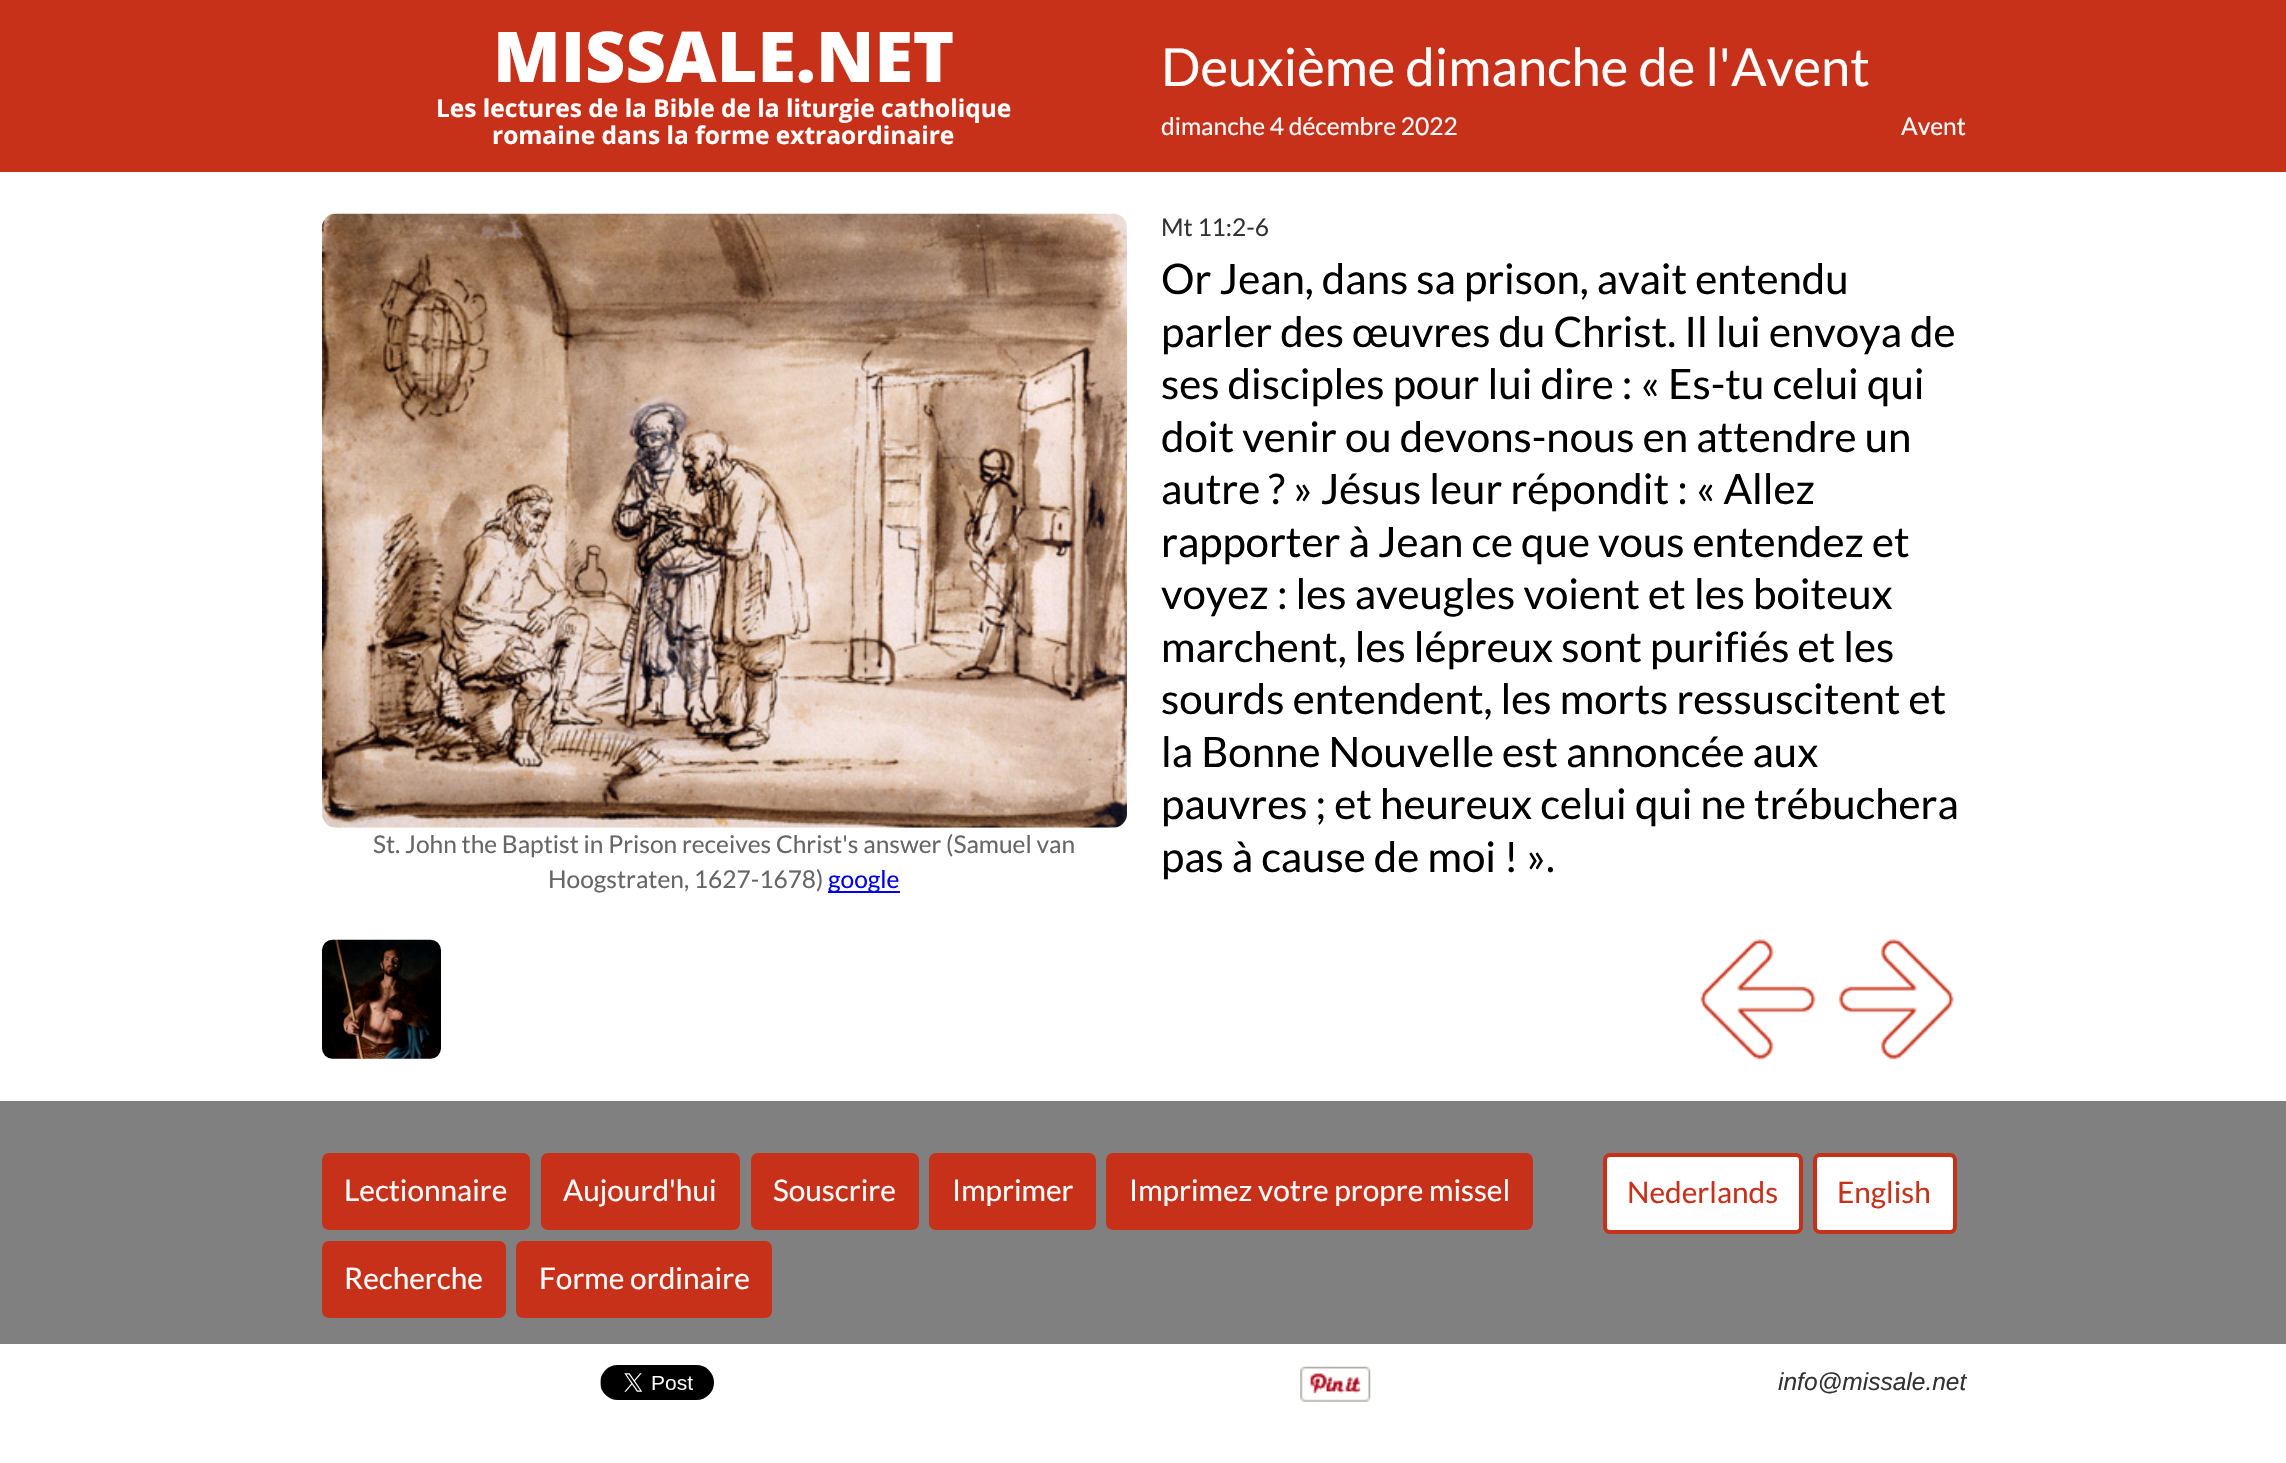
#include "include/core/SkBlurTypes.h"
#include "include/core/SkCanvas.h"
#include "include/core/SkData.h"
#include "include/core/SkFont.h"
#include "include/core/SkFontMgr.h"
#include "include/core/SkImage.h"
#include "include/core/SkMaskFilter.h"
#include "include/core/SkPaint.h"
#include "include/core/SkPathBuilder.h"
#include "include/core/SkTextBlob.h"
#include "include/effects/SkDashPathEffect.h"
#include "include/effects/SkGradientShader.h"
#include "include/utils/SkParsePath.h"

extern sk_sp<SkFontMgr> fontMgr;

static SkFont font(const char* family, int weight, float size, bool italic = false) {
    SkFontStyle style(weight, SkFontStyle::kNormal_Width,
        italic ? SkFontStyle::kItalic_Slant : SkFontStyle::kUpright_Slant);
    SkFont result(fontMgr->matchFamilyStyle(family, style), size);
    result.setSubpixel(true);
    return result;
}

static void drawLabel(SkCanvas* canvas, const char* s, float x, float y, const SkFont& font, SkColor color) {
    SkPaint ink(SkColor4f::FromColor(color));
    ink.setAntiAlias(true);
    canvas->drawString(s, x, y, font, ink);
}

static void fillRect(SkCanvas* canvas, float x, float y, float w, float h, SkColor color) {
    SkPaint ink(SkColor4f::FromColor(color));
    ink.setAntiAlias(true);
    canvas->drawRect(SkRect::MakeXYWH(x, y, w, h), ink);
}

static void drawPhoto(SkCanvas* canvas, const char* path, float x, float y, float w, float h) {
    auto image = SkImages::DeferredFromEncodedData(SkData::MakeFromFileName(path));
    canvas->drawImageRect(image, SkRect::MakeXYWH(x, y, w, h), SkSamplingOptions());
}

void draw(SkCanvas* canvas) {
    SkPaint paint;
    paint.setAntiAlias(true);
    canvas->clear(0xFFFFFFFF);
    fillRect(canvas, 0, 0, 2286, 172, 0xFFC7311A);
    SkFont font1 = font("Open Sans", 800, 70);
    drawLabel(canvas, "MISSALE.NET", 493, 82, font1, 0xFFFFFFFF);
    SkFont font2 = font("Open Sans", 700, 24.5f);
    drawLabel(canvas, "Les lectures de la Bible de la liturgie catholique", 436, 117, font2, 0xFFFFFFFF);
    drawLabel(canvas, "romaine dans la forme extraordinaire", 492, 144, font2, 0xFFFFFFFF);
    SkFont font3 = font("Lato", 400, 52.5f);
    drawLabel(canvas, "Deuxième dimanche de l'Avent", 1161, 86, font3, 0xFFFFFFFF);
    SkFont font4 = font("Lato", 400, 24.5f);
    drawLabel(canvas, "dimanche 4 décembre 2022", 1161, 135, font4, 0xFFFFFFFF);
    drawLabel(canvas, "Avent", 1901, 135, font4, 0xFFFFFFFF);
    drawPhoto(canvas, "assets/img1.png", 322, 213, 805, 615);
    drawLabel(canvas, "St. John the Baptist in Prison receives Christ's answer (Samuel van", 373, 853, font4, 0xFF666666);
    drawLabel(canvas, "Hoogstraten, 1627-1678)", 548, 888, font4, 0xFF666666);
    fillRect(canvas, 828, 891, 72, 2, 0xFF0000EE);
    drawLabel(canvas, "google", 828, 888, font4, 0xFF0000EE);
    drawLabel(canvas, "Mt 11:2-6", 1161, 236, font4, 0xFF333333);
    SkFont font5 = font("Lato", 400, 42);
    drawLabel(canvas, "Or Jean, dans sa prison, avait entendu", 1161, 294, font5, 0xFF000000);
    drawLabel(canvas, "parler des œuvres du Christ. Il lui envoya de", 1161, 347, font5, 0xFF000000);
    drawLabel(canvas, "ses disciples pour lui dire : « Es-tu celui qui", 1161, 399, font5, 0xFF000000);
    drawLabel(canvas, "doit venir ou devons-nous en attendre un", 1161, 452, font5, 0xFF000000);
    drawLabel(canvas, "autre ? » Jésus leur répondit : « Allez", 1161, 504, font5, 0xFF000000);
    drawLabel(canvas, "rapporter à Jean ce que vous entendez et", 1161, 557, font5, 0xFF000000);
    drawLabel(canvas, "voyez : les aveugles voient et les boiteux", 1161, 609, font5, 0xFF000000);
    drawLabel(canvas, "marchent, les lépreux sont purifiés et les", 1161, 662, font5, 0xFF000000);
    drawLabel(canvas, "sourds entendent, les morts ressuscitent et", 1161, 714, font5, 0xFF000000);
    drawLabel(canvas, "la Bonne Nouvelle est annoncée aux", 1161, 767, font5, 0xFF000000);
    drawLabel(canvas, "pauvres ; et heureux celui qui ne trébuchera", 1161, 819, font5, 0xFF000000);
    drawLabel(canvas, "pas à cause de moi ! ».", 1161, 872, font5, 0xFF000000);
    drawPhoto(canvas, "assets/img2.png", 321, 939, 121, 120);
    drawPhoto(canvas, "assets/img3.png", 1700, 939, 116, 121);
    drawPhoto(canvas, "assets/img4.png", 1838, 939, 116, 121);
    fillRect(canvas, 0, 1101, 2286, 243, 0xFF808080);
    paint.setColor(0xFFC7311A);
    canvas->drawRoundRect(SkRect::MakeXYWH(323, 1154, 206, 75), 6, 6, paint);
    paint.setStroke(true);
    paint.setStrokeWidth(2);
    canvas->drawRoundRect(SkRect::MakeXYWH(323, 1154, 206, 75), 6, 6, paint);
    SkFont font6 = font("Lato", 400, 29.75f);
    drawLabel(canvas, "Lectionnaire", 344, 1201, font6, 0xFFFFFFFF);
    paint.setStroke(false);
    canvas->drawRoundRect(SkRect::MakeXYWH(542, 1154, 197, 75), 6, 6, paint);
    paint.setStroke(true);
    canvas->drawRoundRect(SkRect::MakeXYWH(542, 1154, 197, 75), 6, 6, paint);
    drawLabel(canvas, "Aujourd'hui", 563, 1201, font6, 0xFFFFFFFF);
    paint.setStroke(false);
    canvas->drawRoundRect(SkRect::MakeXYWH(752, 1154, 166, 75), 6, 6, paint);
    paint.setStroke(true);
    canvas->drawRoundRect(SkRect::MakeXYWH(752, 1154, 166, 75), 6, 6, paint);
    drawLabel(canvas, "Souscrire", 773, 1201, font6, 0xFFFFFFFF);
    paint.setStroke(false);
    canvas->drawRoundRect(SkRect::MakeXYWH(930, 1154, 165, 75), 6, 6, paint);
    paint.setStroke(true);
    canvas->drawRoundRect(SkRect::MakeXYWH(930, 1154, 165, 75), 6, 6, paint);
    drawLabel(canvas, "Imprimer", 952, 1201, font6, 0xFFFFFFFF);
    paint.setStroke(false);
    canvas->drawRoundRect(SkRect::MakeXYWH(1107, 1154, 425, 75), 6, 6, paint);
    paint.setStroke(true);
    canvas->drawRoundRect(SkRect::MakeXYWH(1107, 1154, 425, 75), 6, 6, paint);
    drawLabel(canvas, "Imprimez votre propre missel", 1129, 1201, font6, 0xFFFFFFFF);
    paint.setStroke(false);
    paint.setColor(0xFFFFFFFF);
    canvas->drawRoundRect(SkRect::MakeXYWH(1605, 1155, 196, 77), 5, 5, paint);
    paint.setStroke(true);
    paint.setStrokeWidth(4);
    paint.setColor(0xFFC7311A);
    canvas->drawRoundRect(SkRect::MakeXYWH(1605, 1155, 196, 77), 5, 5, paint);
    drawLabel(canvas, "Nederlands", 1627, 1203, font6, 0xFFC7311A);
    paint.setStroke(false);
    paint.setColor(0xFFFFFFFF);
    canvas->drawRoundRect(SkRect::MakeXYWH(1815, 1155, 140, 77), 5, 5, paint);
    paint.setStroke(true);
    paint.setColor(0xFFC7311A);
    canvas->drawRoundRect(SkRect::MakeXYWH(1815, 1155, 140, 77), 5, 5, paint);
    drawLabel(canvas, "English", 1837, 1203, font6, 0xFFC7311A);
    paint.setStroke(false);
    canvas->drawRoundRect(SkRect::MakeXYWH(323, 1242, 182, 75), 6, 6, paint);
    paint.setStroke(true);
    paint.setStrokeWidth(2);
    canvas->drawRoundRect(SkRect::MakeXYWH(323, 1242, 182, 75), 6, 6, paint);
    drawLabel(canvas, "Recherche", 344, 1289, font6, 0xFFFFFFFF);
    paint.setStroke(false);
    canvas->drawRoundRect(SkRect::MakeXYWH(517, 1242, 254, 75), 6, 6, paint);
    paint.setStroke(true);
    canvas->drawRoundRect(SkRect::MakeXYWH(517, 1242, 254, 75), 6, 6, paint);
    drawLabel(canvas, "Forme ordinaire", 539, 1289, font6, 0xFFFFFFFF);
    drawPhoto(canvas, "assets/img5.png", 600, 1365, 114, 35);
    drawPhoto(canvas, "assets/img6.png", 1300, 1366, 71, 36);
    SkFont font7 = font("Liberation Sans", 400, 24.5f, true);
    drawLabel(canvas, "info@missale.net", 1778, 1390, font7, 0xFF333333);
}
